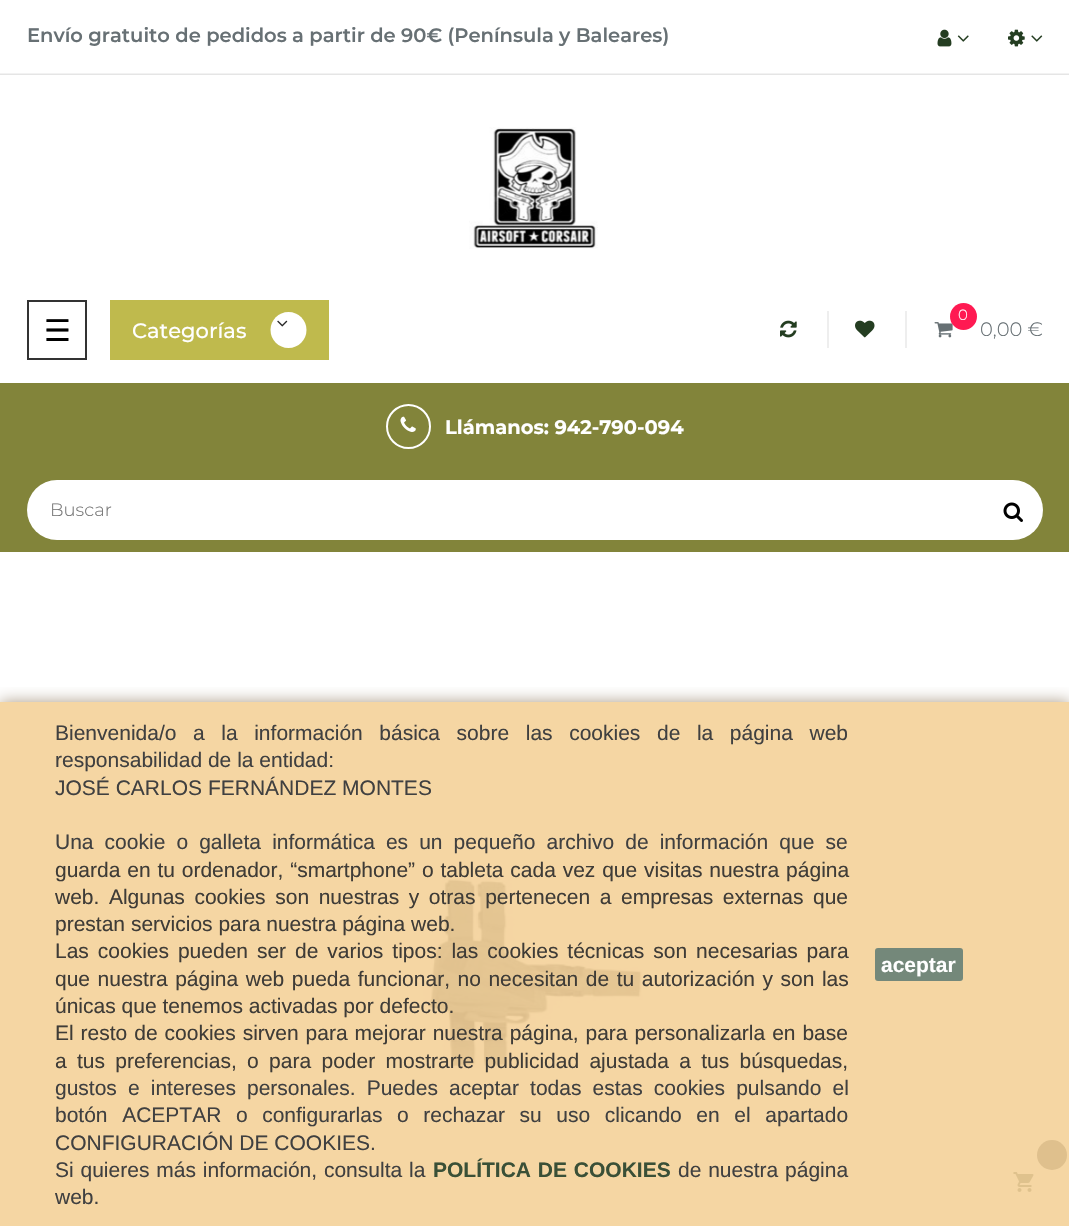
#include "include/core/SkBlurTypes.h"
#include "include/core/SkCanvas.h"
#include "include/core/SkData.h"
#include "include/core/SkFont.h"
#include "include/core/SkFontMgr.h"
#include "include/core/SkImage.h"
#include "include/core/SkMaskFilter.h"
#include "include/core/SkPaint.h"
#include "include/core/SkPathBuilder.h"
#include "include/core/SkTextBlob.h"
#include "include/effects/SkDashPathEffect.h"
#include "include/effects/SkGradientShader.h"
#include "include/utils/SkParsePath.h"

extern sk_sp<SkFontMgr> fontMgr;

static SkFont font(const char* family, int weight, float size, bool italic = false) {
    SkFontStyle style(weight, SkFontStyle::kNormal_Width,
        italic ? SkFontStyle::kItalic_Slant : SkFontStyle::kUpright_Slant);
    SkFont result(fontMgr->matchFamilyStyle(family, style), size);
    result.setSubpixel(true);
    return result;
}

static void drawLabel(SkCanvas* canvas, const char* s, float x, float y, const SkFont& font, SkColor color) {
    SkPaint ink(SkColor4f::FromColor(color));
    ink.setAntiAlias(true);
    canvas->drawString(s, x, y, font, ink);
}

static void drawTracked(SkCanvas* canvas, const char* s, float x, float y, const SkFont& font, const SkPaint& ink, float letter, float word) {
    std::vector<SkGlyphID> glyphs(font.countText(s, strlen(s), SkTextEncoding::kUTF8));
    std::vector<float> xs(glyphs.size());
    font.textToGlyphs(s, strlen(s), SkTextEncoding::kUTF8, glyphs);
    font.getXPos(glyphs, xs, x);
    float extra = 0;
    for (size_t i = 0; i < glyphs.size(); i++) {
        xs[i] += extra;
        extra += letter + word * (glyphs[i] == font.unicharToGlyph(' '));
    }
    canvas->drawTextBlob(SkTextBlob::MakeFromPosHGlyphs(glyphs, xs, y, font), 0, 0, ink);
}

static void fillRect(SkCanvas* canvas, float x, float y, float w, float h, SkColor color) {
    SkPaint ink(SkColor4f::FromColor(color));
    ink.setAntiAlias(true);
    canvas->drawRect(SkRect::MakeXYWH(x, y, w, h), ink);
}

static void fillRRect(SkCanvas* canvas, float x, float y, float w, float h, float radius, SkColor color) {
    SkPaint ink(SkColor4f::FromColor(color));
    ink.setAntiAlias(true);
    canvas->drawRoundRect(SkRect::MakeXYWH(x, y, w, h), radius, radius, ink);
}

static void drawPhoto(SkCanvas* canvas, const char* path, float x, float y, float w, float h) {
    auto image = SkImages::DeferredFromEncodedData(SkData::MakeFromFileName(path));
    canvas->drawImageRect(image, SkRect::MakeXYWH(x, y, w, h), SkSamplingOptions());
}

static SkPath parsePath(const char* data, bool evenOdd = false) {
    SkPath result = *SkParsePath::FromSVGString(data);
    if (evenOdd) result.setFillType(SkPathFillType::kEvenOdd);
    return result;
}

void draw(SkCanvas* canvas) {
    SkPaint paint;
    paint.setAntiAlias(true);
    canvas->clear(0xFFFFFFFF);
    fillRect(canvas, 0, 702, 1069, 524, 0xFFF5D6A3);
    drawPhoto(canvas, "assets/img1.png", 0, 73, 1069, 2);
    SkFont font1 = font("Montserrat", 600, 19.5f);
    drawLabel(canvas, "Envío gratuito de pedidos a partir de 90€ (Península y Baleares)", 27, 42, font1, 0xFF677074);
    drawPhoto(canvas, "assets/img2.png", 937, 29, 15, 18);
    drawPhoto(canvas, "assets/img3.png", 957, 35, 12, 7);
    drawPhoto(canvas, "assets/img4.png", 1008, 29, 17, 18);
    drawPhoto(canvas, "assets/img5.png", 1031, 35, 12, 7);
    drawPhoto(canvas, "assets/img6.png", 469, 127, 129, 122);
    paint.setStroke(true);
    paint.setStrokeWidth(2);
    paint.setColor(0xFF333333);
    canvas->drawRect(SkRect::MakeXYWH(28, 301, 58, 58), paint);
    SkFont font2 = font("DejaVu Sans", 400, 30);
    drawLabel(canvas, "☰", 44, 341, font2, 0xFF000000);
    fillRect(canvas, 827, 311, 2, 37, 0xFFEEEEEE);
    drawPhoto(canvas, "assets/img7.png", 780, 320, 17, 18);
    fillRect(canvas, 905, 311, 2, 37, 0xFFEEEEEE);
    drawPhoto(canvas, "assets/img8.png", 855, 320, 20, 18);
    drawPhoto(canvas, "assets/img9.png", 934, 322, 19, 16);
    paint.setStroke(false);
    paint.setColor(0xFFFF1A52);
    canvas->drawCircle(963.5f, 316.5f, 13.5f, paint);
    SkFont font3 = font("Montserrat", 300, 15);
    drawLabel(canvas, "0", 958, 320, font3, 0xFFFFFFFF);
    SkFont font4 = font("Montserrat", 300, 19.5f);
    drawLabel(canvas, "0,00 €", 980, 336, font4, 0xFF677074);
    fillRect(canvas, 0, 383, 1069, 169, 0xFF82843A);
    fillRect(canvas, 110, 300, 219, 60, 0xFFBFBA4D);
    SkFont font5 = font("Montserrat", 500, 21);
    drawLabel(canvas, "Categorías", 132, 338, font5, 0xFFFFFFFF);
    paint.setColor(0xFFFFFFFF);
    canvas->drawPath(parsePath("M306.5 330C306.5 340 298.5 348 288.5 348C278.5 348 270.5 340 270.5 330C270.5 320 278.5 312 288.5 312C298.5 312 306.5 320 306.5 330Z"), paint);
    drawPhoto(canvas, "assets/img10.png", 277, 320, 11, 7);
    paint.setStroke(true);
    canvas->drawCircle(408.5f, 426.5f, 21.5f, paint);
    drawPhoto(canvas, "assets/img11.png", 400, 416, 16, 16);
    SkFont font6 = font("Montserrat", 700, 19.5f);
    drawLabel(canvas, "Llámanos: 942-790-094", 445, 434, font6, 0xFFFFFFFF);
    fillRRect(canvas, 27, 480, 1016, 60, 30, 0xFFFFFFFF);
    SkFont font7 = font("Montserrat", 300, 18);
    drawLabel(canvas, "Buscar", 50, 516, font7, 0xFF757575);
    drawPhoto(canvas, "assets/img12.png", 1003, 502, 20, 20);
    drawPhoto(canvas, "assets/img13.png", 423, 877, 220, 193);
    paint.setStroke(false);
    paint.setColor(0xFFDFC08D);
    canvas->drawCircle(1052, 1155, 15, paint);
    drawPhoto(canvas, "assets/img14.png", 1013, 1172, 21, 20);
    canvas->save();
    canvas->clipRect(SkRect::MakeXYWH(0, 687, 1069, 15));
    paint.setColor(0xFFAB9B86);
    paint.setMaskFilter(SkMaskFilter::MakeBlur(kNormal_SkBlurStyle, 7.5f));
    canvas->drawRect(SkRect::MakeXYWH(0, 702, 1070, 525), paint);
    paint.setMaskFilter(nullptr);
    canvas->restore();
    SkFont font8 = font("Liberation Sans", 400, 21);
    paint.setColor(0xFF404040);
    drawTracked(canvas, "Bienvenida/o a la información básica sobre las cookies de la página web", 55, 740, font8, paint, 0, 10.75f);
    drawLabel(canvas, "responsabilidad de la entidad:", 55, 767, font8, 0xFF404040);
    drawLabel(canvas, "JOSÉ CARLOS FERNÁNDEZ MONTES", 55, 795, font8, 0xFF404040);
    drawTracked(canvas, "Una cookie o galleta informática es un pequeño archivo de información que se", 55, 849, font8, paint, 0, 5.25f);
    paint.setColor(0xFF3F3C37);
    drawTracked(canvas, "guarda en tu ordenador, “smartphone” o tableta cada vez que visitas nuestra página", 55, 877, font8, paint, 0, 1);
    drawTracked(canvas, "web. Algunas cookies son nuestras y otras pertenecen a empresas externas que", 55, 904, font8, paint, 0, 3.75f);
    drawLabel(canvas, "prestan servicios para nuestra página web.", 55, 931, font8, 0xFF3F3C37);
    drawTracked(canvas, "Las cookies pueden ser de varios tipos: las cookies técnicas son necesarias para", 55, 958, font8, paint, 0, 3.1f);
    drawTracked(canvas, "que nuestra página web pueda funcionar, no necesitan de tu autorización y son las", 55, 986, font8, paint, 0, 1.7f);
    drawLabel(canvas, "únicas que tenemos activadas por defecto.", 55, 1013, font8, 0xFF3F3C37);
    drawTracked(canvas, "El resto de cookies sirven para mejorar nuestra página, para personalizarla en base", 55, 1040, font8, paint, 0, 1.1f);
    drawTracked(canvas, "a tus preferencias, o para poder mostrarte publicidad ajustada a tus búsquedas,", 55, 1068, font8, paint, 0, 4.5f);
    paint.setColor(0xFF404040);
    drawTracked(canvas, "gustos e intereses personales. Puedes aceptar todas estas cookies pulsando el", 55, 1095, font8, paint, 0, 5.25f);
    drawTracked(canvas, "botón ACEPTAR o configurarlas o rechazar su uso clicando en el apartado", 55, 1122, font8, paint, 0, 8.75f);
    drawLabel(canvas, "CONFIGURACIÓN DE COOKIES.", 55, 1150, font8, 0xFF404040);
    drawTracked(canvas, "Si quieres más información, consulta la", 55, 1177, font8, paint, 0, 1);
    SkFont font9 = font("Liberation Sans", 700, 21);
    paint.setColor(0xFF3A5037);
    drawTracked(canvas, "POLÍTICA DE COOKIES", 433, 1177, font9, paint, 0, 1);
    paint.setColor(0xFF404040);
    drawTracked(canvas, "de nuestra página", 678, 1177, font8, paint, 0, 1);
    drawLabel(canvas, "web.", 55, 1204, font8, 0xFF404040);
    fillRRect(canvas, 875, 948, 88, 33, 3, 0xFF74887A);
    drawLabel(canvas, "aceptar", 881, 972, font9, 0xFFFFFFFF);
}
